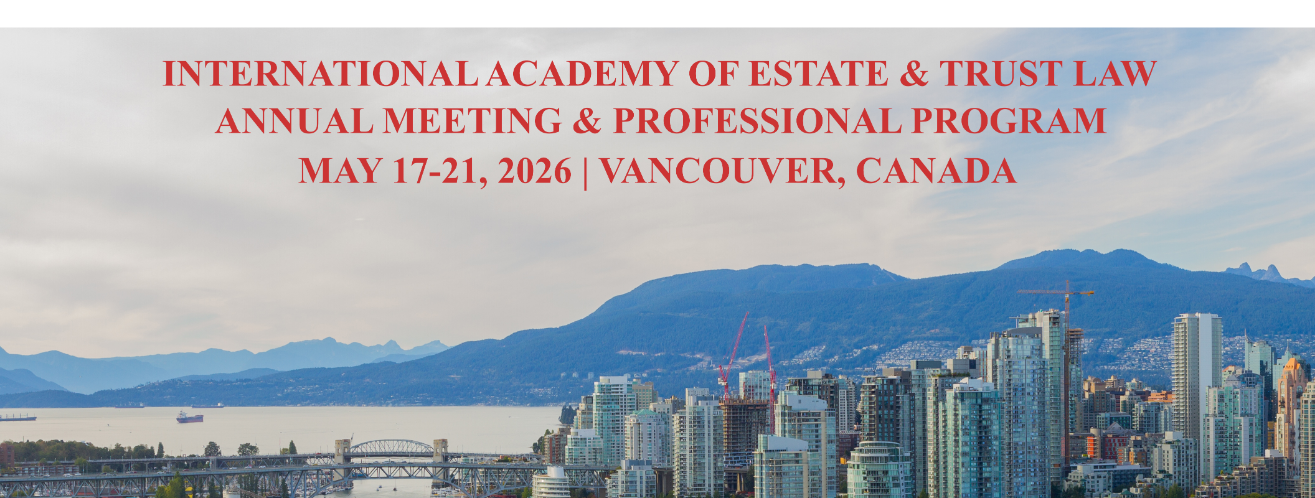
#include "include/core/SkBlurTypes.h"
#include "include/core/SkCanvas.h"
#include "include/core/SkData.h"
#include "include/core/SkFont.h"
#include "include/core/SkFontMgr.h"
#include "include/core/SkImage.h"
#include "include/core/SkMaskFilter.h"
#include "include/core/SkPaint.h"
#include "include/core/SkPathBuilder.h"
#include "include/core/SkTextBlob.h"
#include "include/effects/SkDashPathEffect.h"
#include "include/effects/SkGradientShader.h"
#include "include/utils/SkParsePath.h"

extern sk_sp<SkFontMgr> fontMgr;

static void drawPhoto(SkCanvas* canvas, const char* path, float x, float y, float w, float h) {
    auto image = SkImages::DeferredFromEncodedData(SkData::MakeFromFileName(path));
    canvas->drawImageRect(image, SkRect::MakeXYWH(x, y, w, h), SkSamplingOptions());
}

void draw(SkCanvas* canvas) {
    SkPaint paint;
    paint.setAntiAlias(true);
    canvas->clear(0xFFFFFFFF);
    drawPhoto(canvas, "assets/img1.png", 0, 27, 1315, 471);
}
